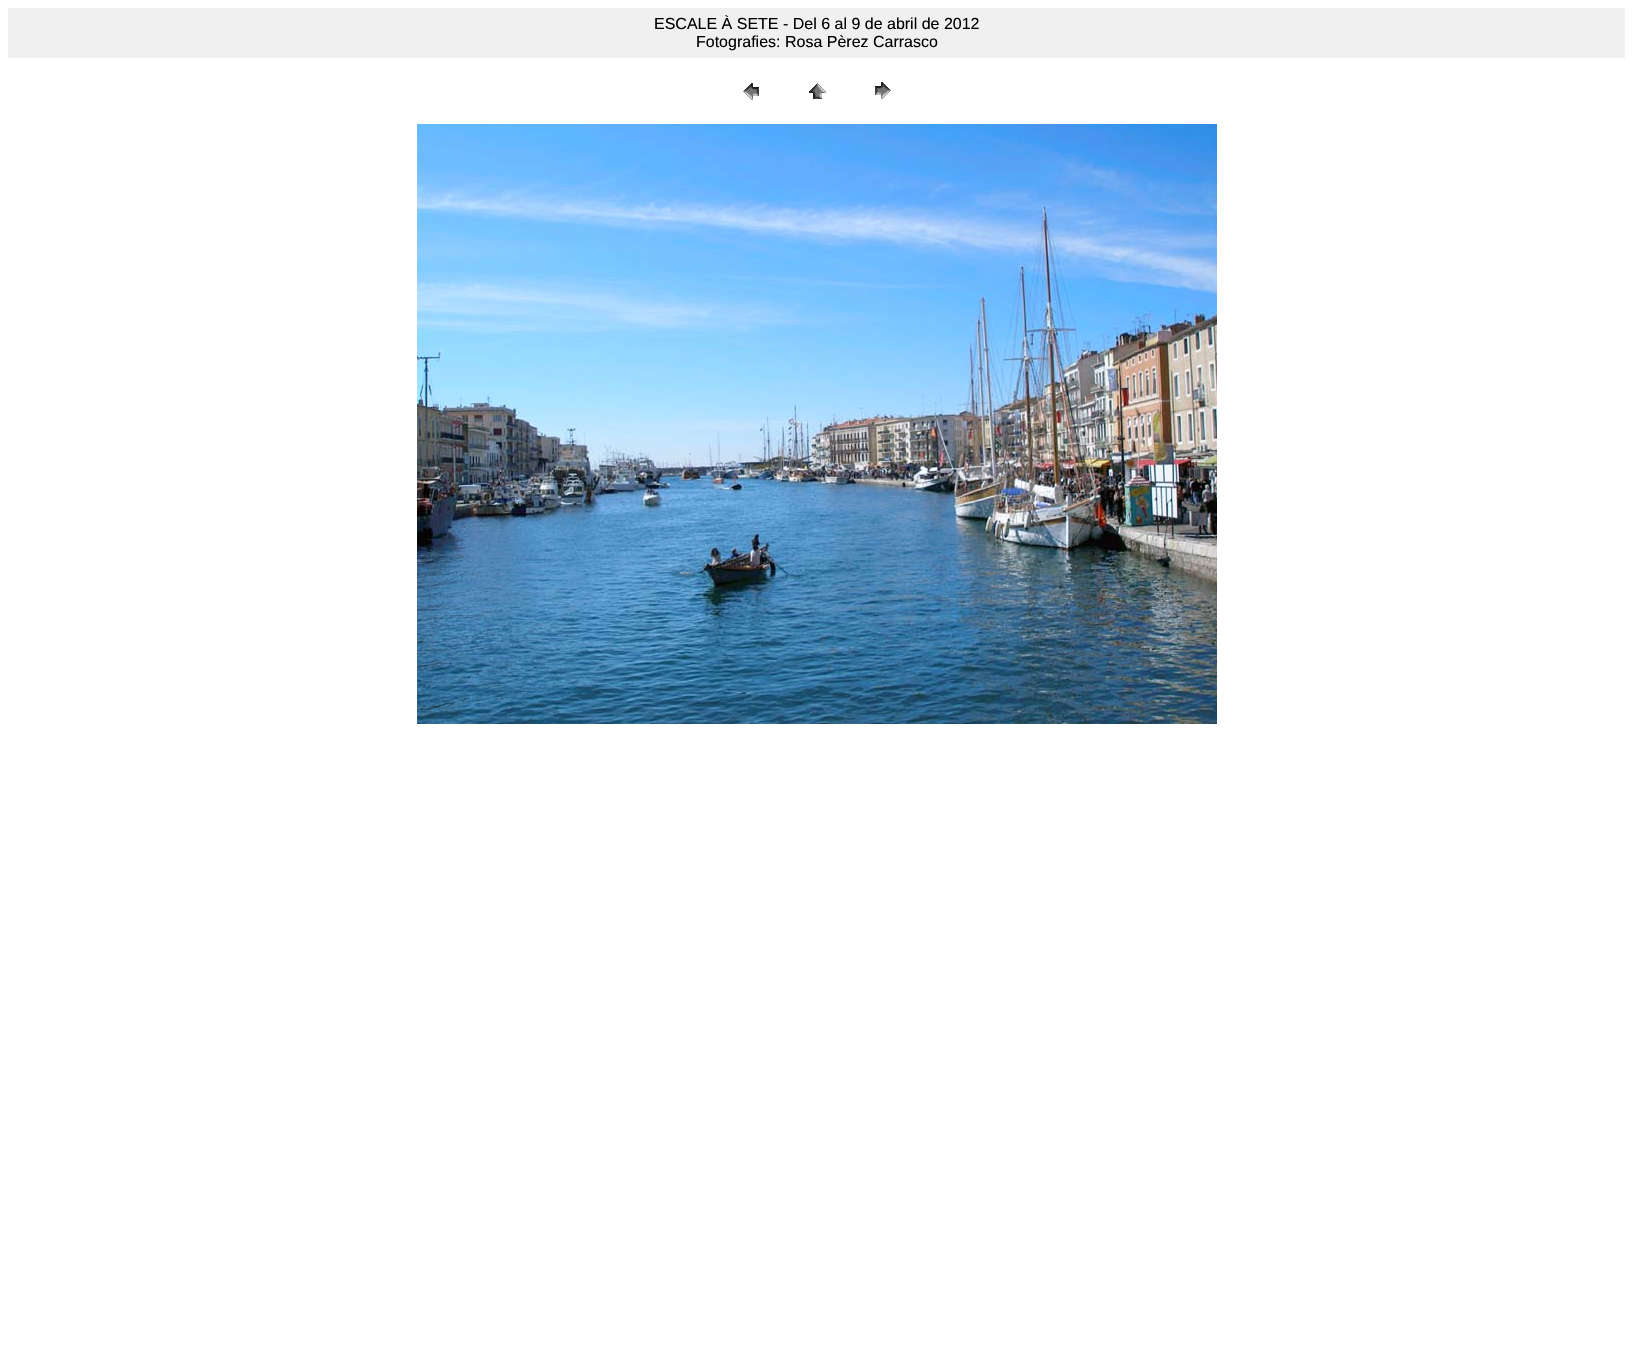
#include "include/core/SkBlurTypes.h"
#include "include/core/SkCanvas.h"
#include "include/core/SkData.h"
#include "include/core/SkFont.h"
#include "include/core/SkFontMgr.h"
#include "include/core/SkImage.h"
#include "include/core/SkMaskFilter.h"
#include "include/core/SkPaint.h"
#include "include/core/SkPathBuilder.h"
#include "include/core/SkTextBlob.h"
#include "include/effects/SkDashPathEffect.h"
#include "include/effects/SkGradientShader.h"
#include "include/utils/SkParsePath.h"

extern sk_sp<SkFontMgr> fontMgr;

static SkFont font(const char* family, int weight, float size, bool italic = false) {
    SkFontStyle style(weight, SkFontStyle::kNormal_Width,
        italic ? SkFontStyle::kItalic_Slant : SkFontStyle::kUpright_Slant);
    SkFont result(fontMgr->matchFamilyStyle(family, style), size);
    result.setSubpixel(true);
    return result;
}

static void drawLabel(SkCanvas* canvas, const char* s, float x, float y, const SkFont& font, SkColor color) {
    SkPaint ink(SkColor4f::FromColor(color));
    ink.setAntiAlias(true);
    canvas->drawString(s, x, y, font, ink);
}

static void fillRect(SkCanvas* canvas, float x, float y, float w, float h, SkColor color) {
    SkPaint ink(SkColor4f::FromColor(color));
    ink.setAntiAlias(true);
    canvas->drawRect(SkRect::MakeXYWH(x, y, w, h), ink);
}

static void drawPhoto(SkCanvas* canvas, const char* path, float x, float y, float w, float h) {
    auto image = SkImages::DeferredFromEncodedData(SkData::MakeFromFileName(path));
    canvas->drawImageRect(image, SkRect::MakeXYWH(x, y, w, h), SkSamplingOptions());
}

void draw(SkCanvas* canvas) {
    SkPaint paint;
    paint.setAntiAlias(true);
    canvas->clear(0xFFFFFFFF);
    fillRect(canvas, 8, 8, 1617, 50, 0xFFF0F0F0);
    SkFont font1 = font("Liberation Sans", 400, 16);
    drawLabel(canvas, "ESCALE À SETE - Del 6 al 9 de abril de 2012", 654, 29, font1, 0xFF000000);
    drawLabel(canvas, "Fotografies: Rosa Pèrez Carrasco", 696, 47, font1, 0xFF000000);
    drawPhoto(canvas, "assets/img1.png", 743, 83, 16, 17);
    drawPhoto(canvas, "assets/img2.png", 809, 83, 17, 16);
    drawPhoto(canvas, "assets/img3.png", 875, 82, 16, 17);
    drawPhoto(canvas, "assets/img4.png", 417, 124, 800, 600);
}
